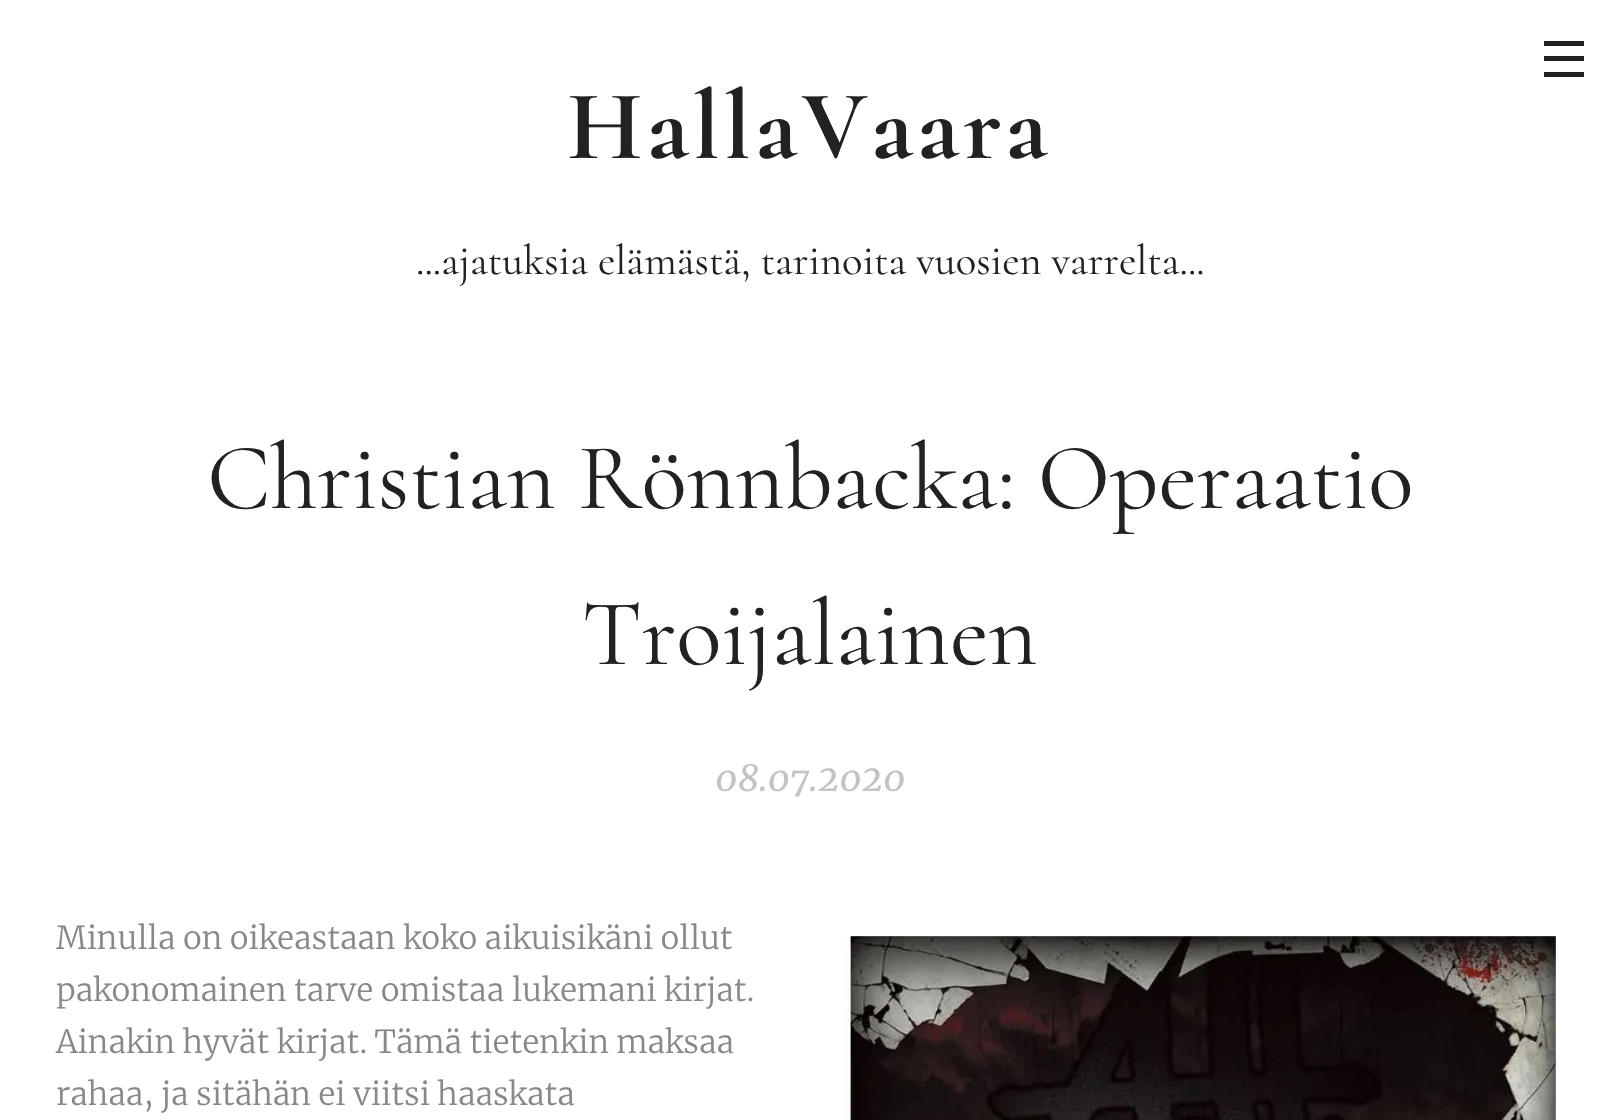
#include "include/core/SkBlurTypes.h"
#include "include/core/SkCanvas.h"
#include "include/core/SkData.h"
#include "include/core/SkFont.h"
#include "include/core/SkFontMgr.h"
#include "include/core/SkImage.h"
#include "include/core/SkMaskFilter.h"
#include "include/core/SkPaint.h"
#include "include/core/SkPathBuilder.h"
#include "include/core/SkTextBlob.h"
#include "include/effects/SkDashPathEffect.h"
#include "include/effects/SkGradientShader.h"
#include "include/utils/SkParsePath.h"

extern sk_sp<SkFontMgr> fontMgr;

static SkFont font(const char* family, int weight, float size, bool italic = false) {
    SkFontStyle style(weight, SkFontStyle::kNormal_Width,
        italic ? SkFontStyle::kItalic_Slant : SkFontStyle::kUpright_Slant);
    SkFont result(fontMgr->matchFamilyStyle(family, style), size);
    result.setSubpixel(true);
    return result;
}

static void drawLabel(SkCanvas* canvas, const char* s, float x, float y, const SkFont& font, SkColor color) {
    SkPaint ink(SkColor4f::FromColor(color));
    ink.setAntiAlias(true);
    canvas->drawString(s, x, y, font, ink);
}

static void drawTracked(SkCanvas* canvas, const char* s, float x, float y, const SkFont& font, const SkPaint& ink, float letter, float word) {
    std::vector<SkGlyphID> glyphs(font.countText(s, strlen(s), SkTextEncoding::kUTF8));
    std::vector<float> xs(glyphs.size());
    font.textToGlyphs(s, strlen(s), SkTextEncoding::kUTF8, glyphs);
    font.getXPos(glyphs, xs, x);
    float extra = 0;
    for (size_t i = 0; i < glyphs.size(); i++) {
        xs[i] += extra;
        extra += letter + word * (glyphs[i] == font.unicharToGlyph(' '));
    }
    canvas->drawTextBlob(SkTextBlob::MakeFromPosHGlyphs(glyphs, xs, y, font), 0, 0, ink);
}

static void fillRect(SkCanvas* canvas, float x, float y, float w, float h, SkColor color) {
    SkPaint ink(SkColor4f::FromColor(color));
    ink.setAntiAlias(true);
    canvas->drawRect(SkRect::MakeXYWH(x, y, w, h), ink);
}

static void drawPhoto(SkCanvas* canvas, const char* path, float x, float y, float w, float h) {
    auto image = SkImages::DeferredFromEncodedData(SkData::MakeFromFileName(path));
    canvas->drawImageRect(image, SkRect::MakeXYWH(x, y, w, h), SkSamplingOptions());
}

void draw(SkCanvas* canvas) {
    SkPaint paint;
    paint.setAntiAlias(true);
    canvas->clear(0xFFFFFFFF);
    fillRect(canvas, 1544, 56, 40, 5, 0xFF222222);
    fillRect(canvas, 1544, 41, 40, 5, 0xFF222222);
    fillRect(canvas, 1544, 72, 40, 5, 0xFF222222);
    SkFont font1 = font("Cormorant", 700, 99);
    paint.setColor(0xFF222222);
    drawTracked(canvas, "HallaVaara", 567, 158, font1, paint, 4.5f, 0);
    SkFont font2 = font("Cormorant", 400, 42.6f);
    drawLabel(canvas, "...ajatuksia elämästä, tarinoita vuosien varrelta...", 416, 274, font2, 0xFF222222);
    SkFont font3 = font("Cormorant", 400, 94.5f);
    drawLabel(canvas, "Christian Rönnbacka: Operaatio", 207, 508, font3, 0xFF222222);
    drawLabel(canvas, "Troijalainen", 582, 664, font3, 0xFF222222);
    SkFont font4 = font("Merriweather", 400, 36, true);
    drawLabel(canvas, "08.07.2020", 715, 791, font4, 0xFFC3C3C3);
    SkFont font5 = font("Merriweather", 300, 31.5f);
    drawLabel(canvas, "Minulla on oikeastaan koko aikuisikäni ollut", 56, 949, font5, 0xFF888888);
    drawLabel(canvas, "pakonomainen tarve omistaa lukemani kirjat.", 56, 1001, font5, 0xFF888888);
    drawLabel(canvas, "Ainakin hyvät kirjat. Tämä tietenkin maksaa", 56, 1053, font5, 0xFF888888);
    drawLabel(canvas, "rahaa, ja sitähän ei viitsi haaskata", 56, 1105, font5, 0xFF888888);
    drawPhoto(canvas, "assets/img1.png", 844, 936, 714, 184);
}
